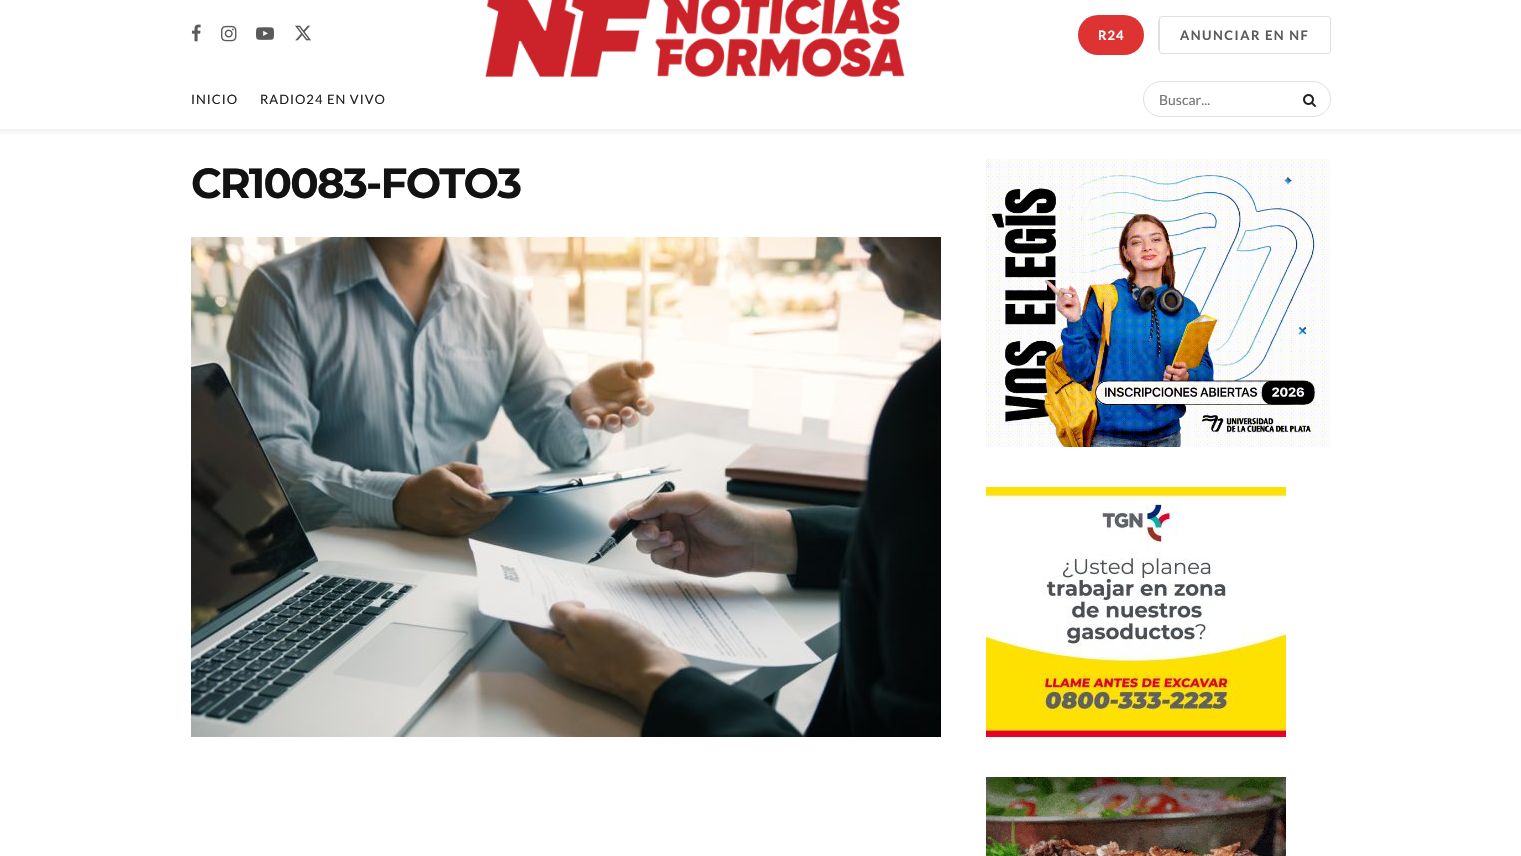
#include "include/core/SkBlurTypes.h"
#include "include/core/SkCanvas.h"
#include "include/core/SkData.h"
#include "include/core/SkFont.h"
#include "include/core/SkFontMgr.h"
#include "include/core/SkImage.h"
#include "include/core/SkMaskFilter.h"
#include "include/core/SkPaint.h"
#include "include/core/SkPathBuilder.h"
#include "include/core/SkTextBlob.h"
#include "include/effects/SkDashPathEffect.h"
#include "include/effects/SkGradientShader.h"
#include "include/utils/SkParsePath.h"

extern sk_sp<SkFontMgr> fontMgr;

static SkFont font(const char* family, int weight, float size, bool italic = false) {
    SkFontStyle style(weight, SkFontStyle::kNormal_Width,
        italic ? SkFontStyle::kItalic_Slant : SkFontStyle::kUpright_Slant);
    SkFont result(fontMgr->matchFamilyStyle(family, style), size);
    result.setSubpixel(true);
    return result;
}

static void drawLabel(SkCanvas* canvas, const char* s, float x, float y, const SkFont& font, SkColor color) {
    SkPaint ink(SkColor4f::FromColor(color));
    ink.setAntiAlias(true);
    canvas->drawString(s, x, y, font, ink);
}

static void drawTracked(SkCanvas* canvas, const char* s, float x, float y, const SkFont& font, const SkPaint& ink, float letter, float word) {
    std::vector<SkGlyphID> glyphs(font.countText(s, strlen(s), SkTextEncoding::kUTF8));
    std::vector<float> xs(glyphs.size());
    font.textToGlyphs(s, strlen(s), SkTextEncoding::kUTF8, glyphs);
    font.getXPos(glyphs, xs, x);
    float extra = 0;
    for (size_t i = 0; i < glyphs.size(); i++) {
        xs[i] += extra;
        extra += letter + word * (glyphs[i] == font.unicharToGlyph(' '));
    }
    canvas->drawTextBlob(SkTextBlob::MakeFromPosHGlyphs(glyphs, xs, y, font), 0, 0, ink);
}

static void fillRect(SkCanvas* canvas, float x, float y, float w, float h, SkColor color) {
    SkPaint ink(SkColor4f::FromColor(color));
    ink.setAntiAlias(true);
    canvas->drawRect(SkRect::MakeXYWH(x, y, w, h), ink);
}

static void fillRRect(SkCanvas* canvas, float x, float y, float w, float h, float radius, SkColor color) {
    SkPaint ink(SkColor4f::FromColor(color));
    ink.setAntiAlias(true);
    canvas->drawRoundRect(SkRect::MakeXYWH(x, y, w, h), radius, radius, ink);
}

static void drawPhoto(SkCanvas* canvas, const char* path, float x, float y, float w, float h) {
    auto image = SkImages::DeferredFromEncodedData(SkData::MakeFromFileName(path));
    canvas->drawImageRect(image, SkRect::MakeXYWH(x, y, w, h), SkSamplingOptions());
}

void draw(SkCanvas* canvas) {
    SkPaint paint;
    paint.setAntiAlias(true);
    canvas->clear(0xFFFFFFFF);
    drawPhoto(canvas, "assets/img1.png", 191, 24, 10, 18);
    drawPhoto(canvas, "assets/img2.png", 221, 25, 16, 17);
    drawPhoto(canvas, "assets/img3.png", 256, 27, 18, 13);
    drawPhoto(canvas, "assets/img4.png", 295, 25, 16, 16);
    drawPhoto(canvas, "assets/img5.png", 485, 0, 420, 77);
    fillRRect(canvas, 1078, 15, 66, 40, 20, 0xFFDD3333);
    SkFont font1 = font("Lato", 700, 13);
    paint.setColor(0xFFFFFFFF);
    drawTracked(canvas, "R24", 1098, 40, font1, paint, 1, 0);
    fillRect(canvas, 1158, 20, 1, 30, 0xFFE0E0E0);
    paint.setStroke(true);
    paint.setStrokeWidth(1);
    paint.setColor(0xFFE0E0E0);
    canvas->drawRoundRect(SkRect::MakeXYWH(1159.5f, 16.5f, 171, 37), 2.5f, 2.5f, paint);
    paint.setStroke(false);
    paint.setColor(0xFF5A5A5A);
    drawTracked(canvas, "ANUNCIAR EN NF", 1180, 40, font1, paint, 1.5f, 0);
    SkFont font2 = font("Lato", 400, 13);
    paint.setColor(0xFF212121);
    drawTracked(canvas, "INICIO", 191, 104, font2, paint, 1, 0);
    drawTracked(canvas, "RADIO24 EN VIVO", 260, 104, font2, paint, 1, 0);
    paint.setStroke(true);
    paint.setColor(0xFFE0E0E0);
    canvas->drawRoundRect(SkRect::MakeXYWH(1143.5f, 81.5f, 187, 35), 17.5f, 17.5f, paint);
    SkFont font3 = font("Lato", 400, 14);
    drawLabel(canvas, "Buscar...", 1159, 105, font3, 0xFF757575);
    drawPhoto(canvas, "assets/img6.png", 1303, 94, 13, 13);
    paint.setStroke(false);
    {
        const SkColor colors[] = {0xFFF2F2F2, 0xFFFFFFFF};
        const float stops[] = {0, 1};
        const SkPoint ends[] = {{761, 129}, {761, 137}};
        paint.setShader(SkGradientShader::MakeLinear(ends, colors, stops, 2, SkTileMode::kClamp));
        paint.setAlpha(255);
    }
    canvas->drawRect(SkRect::MakeXYWH(0, 129, 1521, 6), paint);
    SkFont font4 = font("Montserrat", 700, 42);
    paint.setShader(nullptr);
    paint.setColor(0xFF121212);
    drawTracked(canvas, "CR10083-FOTO3", 191, 198, font4, paint, -1.75f, 0);
    drawPhoto(canvas, "assets/img7.png", 191, 237, 750, 500);
    drawPhoto(canvas, "assets/img8.png", 986, 159, 344, 288);
    drawPhoto(canvas, "assets/img9.png", 986, 487, 300, 250);
    drawPhoto(canvas, "assets/img10.png", 986, 777, 300, 79);
}
